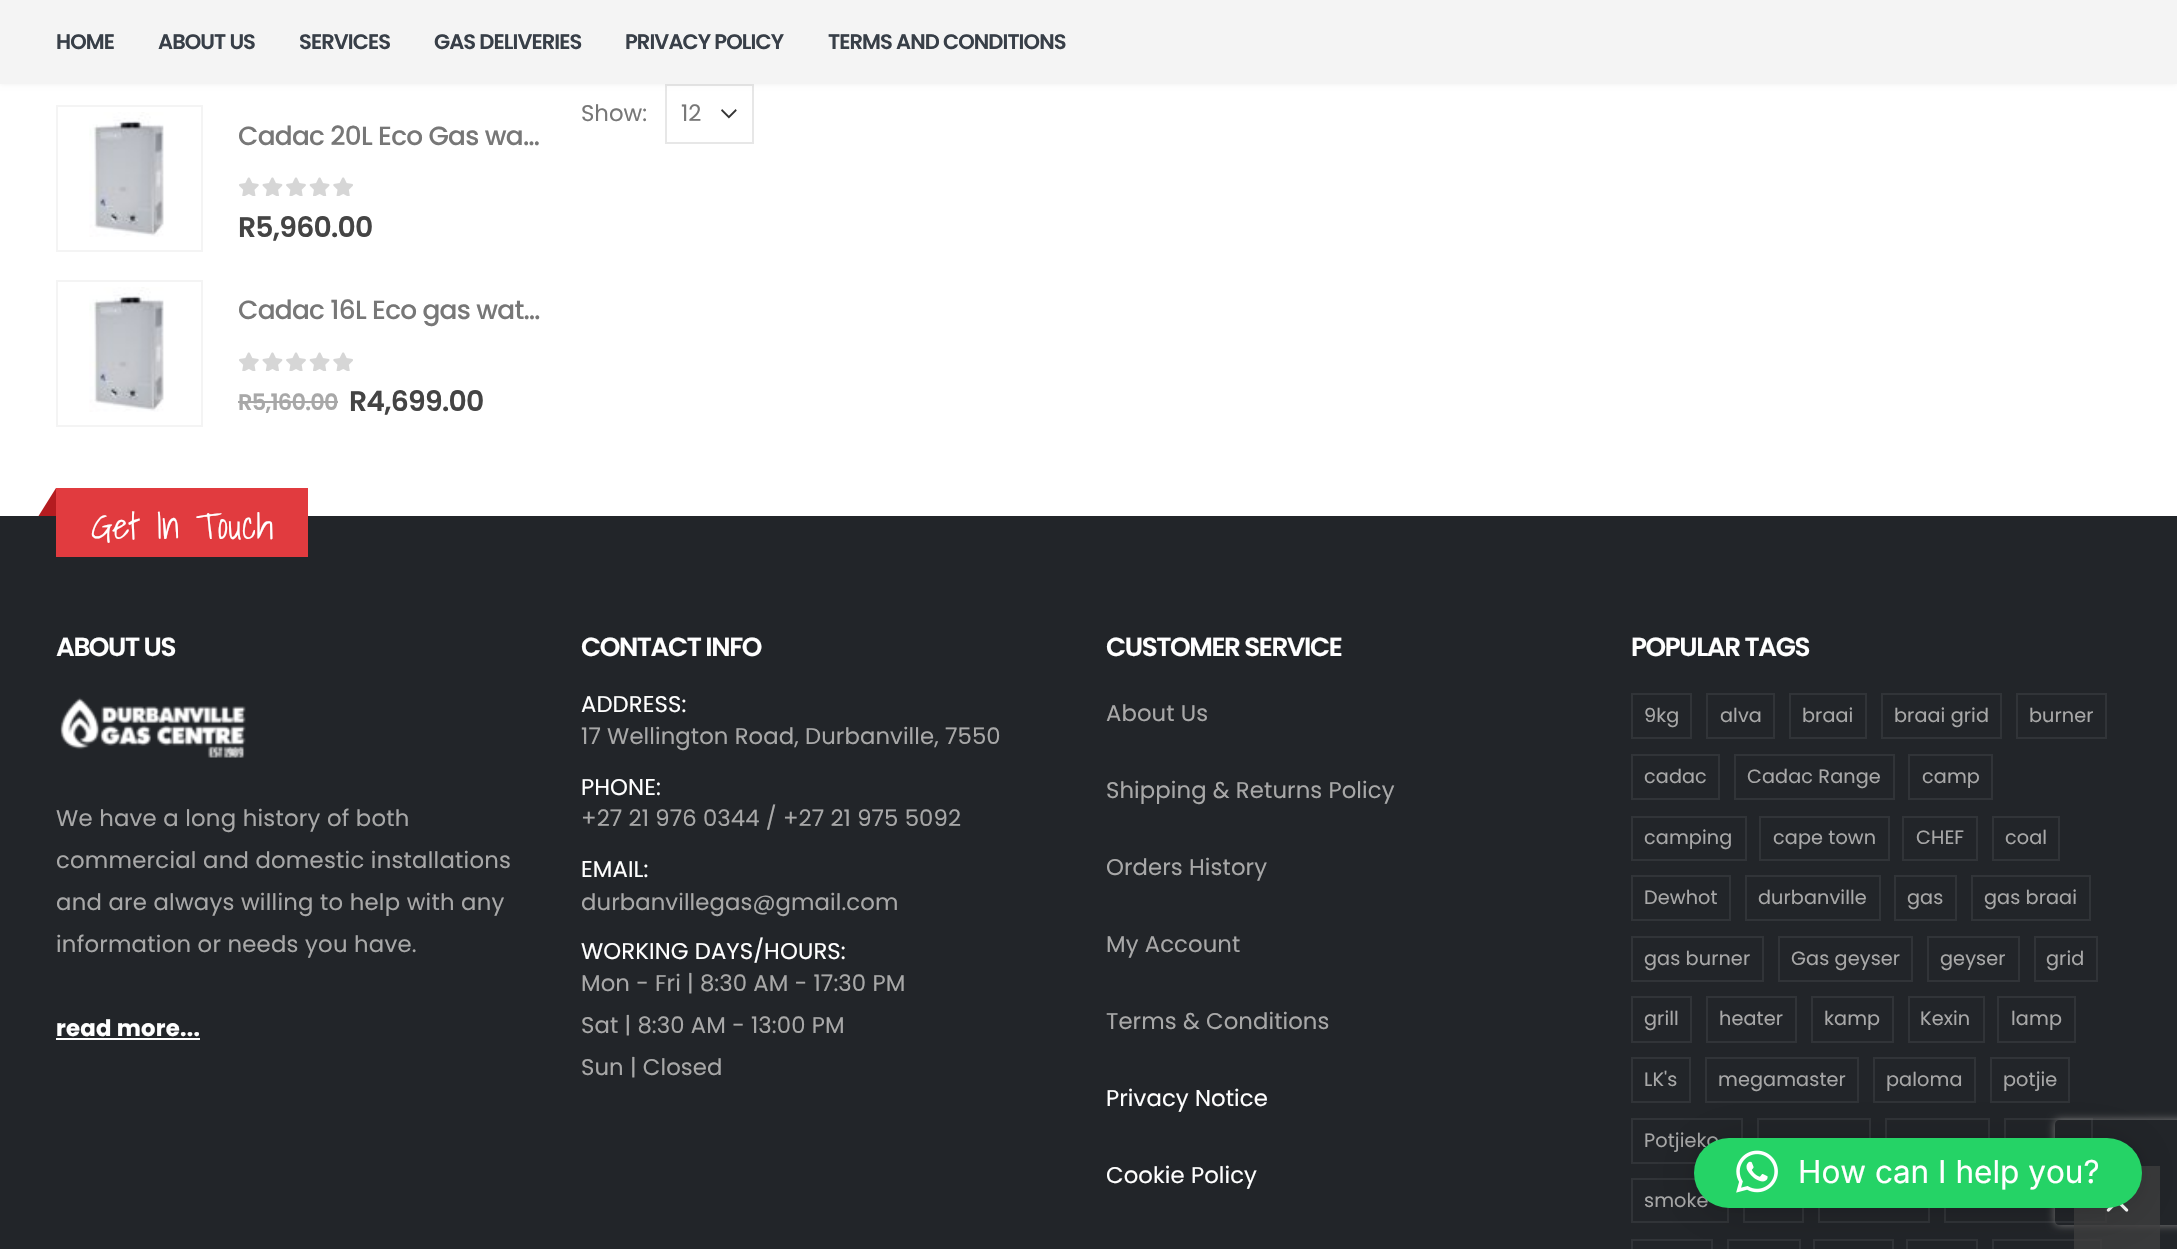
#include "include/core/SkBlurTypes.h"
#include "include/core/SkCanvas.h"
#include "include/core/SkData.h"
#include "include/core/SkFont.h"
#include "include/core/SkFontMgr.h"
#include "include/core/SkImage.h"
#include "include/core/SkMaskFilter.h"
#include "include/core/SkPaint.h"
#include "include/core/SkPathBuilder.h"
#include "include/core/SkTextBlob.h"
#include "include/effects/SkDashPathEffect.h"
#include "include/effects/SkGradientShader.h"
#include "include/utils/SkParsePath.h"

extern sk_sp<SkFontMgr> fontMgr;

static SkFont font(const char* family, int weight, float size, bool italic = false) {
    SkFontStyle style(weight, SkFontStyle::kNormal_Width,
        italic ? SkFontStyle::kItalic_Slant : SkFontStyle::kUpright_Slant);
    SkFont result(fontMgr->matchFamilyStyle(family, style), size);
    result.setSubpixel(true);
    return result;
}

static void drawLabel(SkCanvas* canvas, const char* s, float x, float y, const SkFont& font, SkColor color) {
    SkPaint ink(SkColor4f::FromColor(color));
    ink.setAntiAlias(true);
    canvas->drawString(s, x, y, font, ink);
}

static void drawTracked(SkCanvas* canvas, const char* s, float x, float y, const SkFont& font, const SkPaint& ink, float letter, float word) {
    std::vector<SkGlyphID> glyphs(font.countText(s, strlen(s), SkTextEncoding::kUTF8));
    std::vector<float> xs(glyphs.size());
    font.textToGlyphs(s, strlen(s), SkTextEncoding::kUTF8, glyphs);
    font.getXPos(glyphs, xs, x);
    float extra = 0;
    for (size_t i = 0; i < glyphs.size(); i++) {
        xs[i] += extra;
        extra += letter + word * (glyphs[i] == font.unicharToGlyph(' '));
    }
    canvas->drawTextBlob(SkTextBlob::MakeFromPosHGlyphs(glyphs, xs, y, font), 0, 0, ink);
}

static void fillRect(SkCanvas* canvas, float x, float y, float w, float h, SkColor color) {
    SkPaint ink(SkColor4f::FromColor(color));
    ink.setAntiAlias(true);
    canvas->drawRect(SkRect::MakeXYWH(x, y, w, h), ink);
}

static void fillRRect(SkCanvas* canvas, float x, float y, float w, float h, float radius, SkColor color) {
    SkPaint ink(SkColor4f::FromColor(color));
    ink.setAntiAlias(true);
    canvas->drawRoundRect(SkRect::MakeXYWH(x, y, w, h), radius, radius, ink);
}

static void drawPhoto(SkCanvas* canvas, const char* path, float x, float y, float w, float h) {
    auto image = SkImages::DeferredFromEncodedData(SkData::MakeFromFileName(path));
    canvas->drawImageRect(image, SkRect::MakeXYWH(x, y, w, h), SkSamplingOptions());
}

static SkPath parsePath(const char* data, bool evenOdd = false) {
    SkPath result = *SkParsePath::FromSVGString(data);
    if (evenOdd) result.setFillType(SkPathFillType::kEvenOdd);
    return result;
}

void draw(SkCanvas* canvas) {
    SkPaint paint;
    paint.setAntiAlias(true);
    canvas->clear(0xFFFFFFFF);
    drawPhoto(canvas, "assets/img1.png", 721, 109, 16, 10);
    paint.setStroke(true);
    paint.setStrokeWidth(2);
    paint.setColor(0xFFE7E7E7);
    canvas->drawRect(SkRect::MakeXYWH(666, 85, 87, 58), paint);
    paint.setStroke(false);
    paint.setColor(0x0F000000);
    paint.setMaskFilter(SkMaskFilter::MakeBlur(kNormal_SkBlurStyle, 2.5f));
    canvas->drawRect(SkRect::MakeXYWH(0, 0, 2177, 84), paint);
    paint.setMaskFilter(nullptr);
    fillRect(canvas, 0, 0, 2177, 84, 0xFFF4F4F4);
    SkFont font1 = font("Poppins", 600, 21);
    paint.setColor(0xFF383F48);
    drawTracked(canvas, "HOME", 56, 49, font1, paint, -0.9f, 0);
    drawTracked(canvas, "ABOUT US", 158, 49, font1, paint, -0.9f, 0);
    drawTracked(canvas, "SERVICES", 299, 49, font1, paint, -0.9f, 0);
    drawTracked(canvas, "GAS DELIVERIES", 434, 49, font1, paint, -0.9f, 0);
    drawTracked(canvas, "PRIVACY POLICY", 625, 49, font1, paint, -0.9f, 0);
    drawTracked(canvas, "TERMS AND CONDITIONS", 828, 49, font1, paint, -0.9f, 0);
    SkFont font2 = font("Poppins", 400, 22.75f);
    drawLabel(canvas, "Show:", 581, 121, font2, 0xFF777777);
    drawLabel(canvas, "12", 681, 121, font2, 0xFF777777);
    paint.setStroke(true);
    paint.setColor(0xFFF4F4F4);
    canvas->drawRect(SkRect::MakeXYWH(57, 106, 145, 145), paint);
    drawPhoto(canvas, "assets/img2.png", 89, 112, 75, 125);
    SkFont font3 = font("Poppins", 500, 26.4f);
    paint.setStroke(false);
    paint.setColor(0xFF777777);
    drawTracked(canvas, "Cadac 20L Eco Gas wa…", 238, 145, font3, paint, -0.75f, 0);
    drawPhoto(canvas, "assets/img3.png", 239, 177, 114, 19);
    SkFont font4 = font("Poppins", 600, 28.25f);
    paint.setColor(0xFF444444);
    drawTracked(canvas, "R5,960.00", 238, 237, font4, paint, -0.75f, 0);
    paint.setStroke(true);
    paint.setColor(0xFFF4F4F4);
    canvas->drawRect(SkRect::MakeXYWH(57, 281, 145, 145), paint);
    drawPhoto(canvas, "assets/img2.png", 89, 287, 75, 125);
    paint.setStroke(false);
    paint.setColor(0xFF777777);
    drawTracked(canvas, "Cadac 16L Eco gas wat…", 238, 319, font3, paint, -0.75f, 0);
    drawPhoto(canvas, "assets/img3.png", 239, 352, 114, 19);
    SkFont font5 = font("Poppins", 600, 22.5f);
    paint.setColor(0xFFA8A8A8);
    drawTracked(canvas, "R5,160.00", 238, 410, font5, paint, -0.75f, 0);
    fillRect(canvas, 238, 401, 100, 2, 0xFFA7A7A7);
    paint.setColor(0xFF444444);
    drawTracked(canvas, "R4,699.00", 349, 411, font4, paint, -0.75f, 0);
    fillRect(canvas, 0, 516, 2177, 733, 0xFF222529);
    fillRect(canvas, 56, 488, 252, 69, 0xFFE13B3F);
    paint.setColor(0xFFB41C20);
    canvas->drawPath(parsePath("M56 488V516H38.5Z"), paint);
    SkFont font6 = font("Shadows Into Light", 300, 36.5f);
    paint.setColor(0xFFFFFFFF);
    drawTracked(canvas, "Get In Touch", 91, 539, font6, paint, 0.1f, 0);
    SkFont font7 = font("Poppins", 600, 26.25f);
    drawTracked(canvas, "ABOUT US", 56, 656, font7, paint, -1.4f, 0);
    drawPhoto(canvas, "assets/img4.png", 60, 697, 186, 61);
    paint.setColor(0xFFA8A8A8);
    drawTracked(canvas, "We have a long history of both", 56, 826, font2, paint, 0.25f, 0);
    drawTracked(canvas, "commercial and domestic installations", 56, 868, font2, paint, 0.25f, 0);
    drawTracked(canvas, "and are always willing to help with any", 56, 910, font2, paint, 0.25f, 0);
    drawTracked(canvas, "information or needs you have.", 56, 952, font2, paint, 0.25f, 0);
    SkFont font8 = font("Poppins", 700, 22.75f);
    paint.setColor(0xFFFFFFFF);
    drawTracked(canvas, "read more...", 56, 1036, font8, paint, 0.25f, 0);
    fillRect(canvas, 56, 1038, 144, 2, 0xFFFFFFFF);
    drawTracked(canvas, "CONTACT INFO", 581, 656, font7, paint, -1.4f, 0);
    drawTracked(canvas, "ADDRESS:", 581, 712, font2, paint, 0.1f, 0);
    paint.setColor(0xFFA8A8A8);
    drawTracked(canvas, "17 Wellington Road, Durbanville, 7550", 581, 744, font2, paint, 0.1f, 0);
    paint.setColor(0xFFFFFFFF);
    drawTracked(canvas, "PHONE:", 581, 795, font2, paint, 0.1f, 0);
    paint.setColor(0xFFA8A8A8);
    drawTracked(canvas, "+27 21 976 0344 / +27 21 975 5092", 581, 826, font2, paint, 0.1f, 0);
    paint.setColor(0xFFFFFFFF);
    drawTracked(canvas, "EMAIL:", 581, 877, font2, paint, 0.1f, 0);
    paint.setColor(0xFFA8A8A8);
    drawTracked(canvas, "durbanvillegas@gmail.com", 581, 910, font2, paint, 0.1f, 0);
    paint.setColor(0xFFFFFFFF);
    drawTracked(canvas, "WORKING DAYS/HOURS:", 581, 959, font2, paint, 0.1f, 0);
    paint.setColor(0xFFA8A8A8);
    drawTracked(canvas, "Mon - Fri | 8:30 AM - 17:30 PM", 581, 991, font2, paint, 0.1f, 0);
    drawTracked(canvas, "Sat | 8:30 AM - 13:00 PM", 581, 1033, font2, paint, 0.1f, 0);
    drawTracked(canvas, "Sun | Closed", 581, 1075, font2, paint, 0.1f, 0);
    paint.setColor(0xFFFFFFFF);
    drawTracked(canvas, "CUSTOMER SERVICE", 1106, 656, font7, paint, -1.4f, 0);
    paint.setColor(0xFFA8A8A8);
    drawTracked(canvas, "About Us", 1106, 721, font2, paint, 0.1f, 0);
    drawTracked(canvas, "Shipping & Returns Policy", 1106, 798, font2, paint, 0.1f, 0);
    drawTracked(canvas, "Orders History", 1106, 875, font2, paint, 0.1f, 0);
    drawTracked(canvas, "My Account", 1106, 952, font2, paint, 0.1f, 0);
    drawTracked(canvas, "Terms & Conditions", 1106, 1029, font2, paint, 0.1f, 0);
    paint.setColor(0xFFFFFFFF);
    drawTracked(canvas, "Privacy Notice", 1106, 1106, font2, paint, 0.1f, 0);
    drawTracked(canvas, "Cookie Policy", 1106, 1183, font2, paint, 0.1f, 0);
    drawTracked(canvas, "POPULAR TAGS", 1631, 656, font7, paint, -1.4f, 0);
    paint.setStroke(true);
    paint.setColor(0xFF313438);
    canvas->drawRect(SkRect::MakeXYWH(1632, 694, 59, 44), paint);
    SkFont font9 = font("Poppins", 400, 19.25f);
    paint.setStroke(false);
    paint.setColor(0xFFA8A8A8);
    drawTracked(canvas, "9kg", 1644, 722, font9, paint, 0.1f, 0);
    paint.setStroke(true);
    paint.setColor(0xFF313438);
    canvas->drawRect(SkRect::MakeXYWH(1707, 694, 67, 44), paint);
    paint.setStroke(false);
    paint.setColor(0xFFA8A8A8);
    drawTracked(canvas, "alva", 1720, 722, font9, paint, 0.1f, 0);
    paint.setStroke(true);
    paint.setColor(0xFF313438);
    canvas->drawRect(SkRect::MakeXYWH(1790, 694, 76, 44), paint);
    paint.setStroke(false);
    paint.setColor(0xFFA8A8A8);
    drawTracked(canvas, "braai", 1802, 722, font9, paint, 0.1f, 0);
    paint.setStroke(true);
    paint.setColor(0xFF313438);
    canvas->drawRect(SkRect::MakeXYWH(1882, 694, 119, 44), paint);
    paint.setStroke(false);
    paint.setColor(0xFFA8A8A8);
    drawTracked(canvas, "braai grid", 1894, 722, font9, paint, 0.1f, 0);
    paint.setStroke(true);
    paint.setColor(0xFF313438);
    canvas->drawRect(SkRect::MakeXYWH(2017, 694, 89, 44), paint);
    paint.setStroke(false);
    paint.setColor(0xFFA8A8A8);
    drawTracked(canvas, "burner", 2029, 722, font9, paint, 0.1f, 0);
    paint.setStroke(true);
    paint.setColor(0xFF313438);
    canvas->drawRect(SkRect::MakeXYWH(1632, 755, 87, 44), paint);
    paint.setStroke(false);
    paint.setColor(0xFFA8A8A8);
    drawTracked(canvas, "cadac", 1644, 783, font9, paint, 0.1f, 0);
    paint.setStroke(true);
    paint.setColor(0xFF313438);
    canvas->drawRect(SkRect::MakeXYWH(1735, 755, 159, 44), paint);
    paint.setStroke(false);
    paint.setColor(0xFFA8A8A8);
    drawTracked(canvas, "Cadac Range", 1747, 783, font9, paint, 0.1f, 0);
    paint.setStroke(true);
    paint.setColor(0xFF313438);
    canvas->drawRect(SkRect::MakeXYWH(1909, 755, 83, 44), paint);
    paint.setStroke(false);
    paint.setColor(0xFFA8A8A8);
    drawTracked(canvas, "camp", 1922, 783, font9, paint, 0.1f, 0);
    paint.setStroke(true);
    paint.setColor(0xFF313438);
    canvas->drawRect(SkRect::MakeXYWH(1632, 817, 114, 43), paint);
    paint.setStroke(false);
    paint.setColor(0xFFA8A8A8);
    drawTracked(canvas, "camping", 1644, 844, font9, paint, 0.1f, 0);
    paint.setStroke(true);
    paint.setColor(0xFF313438);
    canvas->drawRect(SkRect::MakeXYWH(1760, 817, 129, 43), paint);
    paint.setStroke(false);
    paint.setColor(0xFFA8A8A8);
    drawTracked(canvas, "cape town", 1773, 844, font9, paint, 0.1f, 0);
    paint.setStroke(true);
    paint.setColor(0xFF313438);
    canvas->drawRect(SkRect::MakeXYWH(1903, 817, 74, 43), paint);
    paint.setStroke(false);
    paint.setColor(0xFFA8A8A8);
    drawTracked(canvas, "CHEF", 1916, 844, font9, paint, 0.1f, 0);
    paint.setStroke(true);
    paint.setColor(0xFF313438);
    canvas->drawRect(SkRect::MakeXYWH(1993, 817, 66, 43), paint);
    paint.setStroke(false);
    paint.setColor(0xFFA8A8A8);
    drawTracked(canvas, "coal", 2005, 844, font9, paint, 0.1f, 0);
    paint.setStroke(true);
    paint.setColor(0xFF313438);
    canvas->drawRect(SkRect::MakeXYWH(1632, 876, 98, 44), paint);
    paint.setStroke(false);
    paint.setColor(0xFFA8A8A8);
    drawTracked(canvas, "Dewhot", 1644, 904, font9, paint, 0.1f, 0);
    paint.setStroke(true);
    paint.setColor(0xFF313438);
    canvas->drawRect(SkRect::MakeXYWH(1746, 876, 134, 44), paint);
    paint.setStroke(false);
    paint.setColor(0xFFA8A8A8);
    drawTracked(canvas, "durbanville", 1758, 904, font9, paint, 0.1f, 0);
    paint.setStroke(true);
    paint.setColor(0xFF313438);
    canvas->drawRect(SkRect::MakeXYWH(1895, 876, 61, 44), paint);
    paint.setStroke(false);
    paint.setColor(0xFFA8A8A8);
    drawTracked(canvas, "gas", 1907, 904, font9, paint, 0.1f, 0);
    paint.setStroke(true);
    paint.setColor(0xFF313438);
    canvas->drawRect(SkRect::MakeXYWH(1972, 876, 118, 44), paint);
    paint.setStroke(false);
    paint.setColor(0xFFA8A8A8);
    drawTracked(canvas, "gas braai", 1984, 904, font9, paint, 0.1f, 0);
    paint.setStroke(true);
    paint.setColor(0xFF313438);
    canvas->drawRect(SkRect::MakeXYWH(1632, 937, 131, 44), paint);
    paint.setStroke(false);
    paint.setColor(0xFFA8A8A8);
    drawTracked(canvas, "gas burner", 1644, 965, font9, paint, 0.1f, 0);
    paint.setStroke(true);
    paint.setColor(0xFF313438);
    canvas->drawRect(SkRect::MakeXYWH(1779, 937, 133, 44), paint);
    paint.setStroke(false);
    paint.setColor(0xFFA8A8A8);
    drawTracked(canvas, "Gas geyser", 1791, 965, font9, paint, 0.1f, 0);
    paint.setStroke(true);
    paint.setColor(0xFF313438);
    canvas->drawRect(SkRect::MakeXYWH(1928, 937, 91, 44), paint);
    paint.setStroke(false);
    paint.setColor(0xFFA8A8A8);
    drawTracked(canvas, "geyser", 1940, 965, font9, paint, 0.1f, 0);
    paint.setStroke(true);
    paint.setColor(0xFF313438);
    canvas->drawRect(SkRect::MakeXYWH(2035, 937, 62, 44), paint);
    paint.setStroke(false);
    paint.setColor(0xFFA8A8A8);
    drawTracked(canvas, "grid", 2046, 965, font9, paint, 0.1f, 0);
    paint.setStroke(true);
    paint.setColor(0xFF313438);
    canvas->drawRect(SkRect::MakeXYWH(1632, 997, 59, 45), paint);
    paint.setStroke(false);
    paint.setColor(0xFFA8A8A8);
    drawTracked(canvas, "grill", 1644, 1025, font9, paint, 0.1f, 0);
    paint.setStroke(true);
    paint.setColor(0xFF313438);
    canvas->drawRect(SkRect::MakeXYWH(1707, 997, 89, 45), paint);
    paint.setStroke(false);
    paint.setColor(0xFFA8A8A8);
    drawTracked(canvas, "heater", 1719, 1025, font9, paint, 0.1f, 0);
    paint.setStroke(true);
    paint.setColor(0xFF313438);
    canvas->drawRect(SkRect::MakeXYWH(1812, 997, 81, 45), paint);
    paint.setStroke(false);
    paint.setColor(0xFFA8A8A8);
    drawTracked(canvas, "kamp", 1824, 1025, font9, paint, 0.1f, 0);
    paint.setStroke(true);
    paint.setColor(0xFF313438);
    canvas->drawRect(SkRect::MakeXYWH(1909, 997, 75, 45), paint);
    paint.setStroke(false);
    paint.setColor(0xFFA8A8A8);
    drawTracked(canvas, "Kexin", 1920, 1025, font9, paint, 0.1f, 0);
    paint.setStroke(true);
    paint.setColor(0xFF313438);
    canvas->drawRect(SkRect::MakeXYWH(1998, 997, 77, 45), paint);
    paint.setStroke(false);
    paint.setColor(0xFFA8A8A8);
    drawTracked(canvas, "lamp", 2011, 1025, font9, paint, 0.1f, 0);
    paint.setStroke(true);
    paint.setColor(0xFF313438);
    canvas->drawRect(SkRect::MakeXYWH(1632, 1058, 58, 44), paint);
    paint.setStroke(false);
    paint.setColor(0xFFA8A8A8);
    drawTracked(canvas, "LK's", 1644, 1086, font9, paint, 0.1f, 0);
    paint.setStroke(true);
    paint.setColor(0xFF313438);
    canvas->drawRect(SkRect::MakeXYWH(1706, 1058, 152, 44), paint);
    paint.setStroke(false);
    paint.setColor(0xFFA8A8A8);
    drawTracked(canvas, "megamaster", 1718, 1086, font9, paint, 0.1f, 0);
    paint.setStroke(true);
    paint.setColor(0xFF313438);
    canvas->drawRect(SkRect::MakeXYWH(1874, 1058, 101, 44), paint);
    paint.setStroke(false);
    paint.setColor(0xFFA8A8A8);
    drawTracked(canvas, "paloma", 1886, 1086, font9, paint, 0.1f, 0);
    paint.setStroke(true);
    paint.setColor(0xFF313438);
    canvas->drawRect(SkRect::MakeXYWH(1991, 1058, 78, 44), paint);
    paint.setStroke(false);
    paint.setColor(0xFFA8A8A8);
    drawTracked(canvas, "potjie", 2003, 1086, font9, paint, 0.1f, 0);
    paint.setStroke(true);
    paint.setColor(0xFF313438);
    canvas->drawRect(SkRect::MakeXYWH(1632, 1119, 110, 44), paint);
    paint.setStroke(false);
    paint.setColor(0xFFA8A8A8);
    drawTracked(canvas, "Potjieko", 1644, 1147, font9, paint, 0.1f, 0);
    paint.setStroke(true);
    paint.setColor(0xFF313438);
    canvas->drawRect(SkRect::MakeXYWH(1758, 1119, 112, 44), paint);
    canvas->drawRect(SkRect::MakeXYWH(1886, 1119, 103, 44), paint);
    canvas->drawRect(SkRect::MakeXYWH(2005, 1119, 87, 44), paint);
    canvas->drawRect(SkRect::MakeXYWH(1632, 1179, 96, 43), paint);
    paint.setStroke(false);
    paint.setColor(0xFFA8A8A8);
    drawTracked(canvas, "smoke", 1644, 1207, font9, paint, 0.1f, 0);
    paint.setStroke(true);
    paint.setColor(0xFF313438);
    canvas->drawRect(SkRect::MakeXYWH(1744, 1179, 59, 43), paint);
    canvas->drawRect(SkRect::MakeXYWH(1819, 1179, 110, 43), paint);
    canvas->drawRect(SkRect::MakeXYWH(1945, 1179, 161, 43), paint);
    canvas->drawRect(SkRect::MakeXYWH(1632, 1240, 80, 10), paint);
    canvas->drawRect(SkRect::MakeXYWH(1728, 1240, 72, 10), paint);
    canvas->drawRect(SkRect::MakeXYWH(1814, 1240, 79, 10), paint);
    canvas->drawRect(SkRect::MakeXYWH(1907, 1240, 70, 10), paint);
    canvas->drawRect(SkRect::MakeXYWH(1993, 1240, 108, 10), paint);
    canvas->save();
    canvas->clipPath(parsePath("M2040 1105H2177V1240H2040ZM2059 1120H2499C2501 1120 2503 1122 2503 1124V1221C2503 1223 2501 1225 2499 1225H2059C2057 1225 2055 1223 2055 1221V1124C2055 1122 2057 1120 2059 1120Z", true), true);
    paint.setStroke(false);
    paint.setColor(0xFF808080);
    paint.setMaskFilter(SkMaskFilter::MakeBlur(kNormal_SkBlurStyle, 4.5f));
    canvas->drawRoundRect(SkRect::MakeXYWH(2055, 1120, 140, 105), 4, 4, paint);
    paint.setMaskFilter(nullptr);
    canvas->restore();
    fillRect(canvas, 2074, 1166, 86, 83, 0xBF404040);
    drawPhoto(canvas, "assets/img6.png", 2106, 1204, 23, 8);
    paint.setColor(0x29000000);
    paint.setMaskFilter(SkMaskFilter::MakeBlur(kNormal_SkBlurStyle, 28));
    canvas->drawRoundRect(SkRect::MakeXYWH(1694, 1141, 448, 70), 35, 35, paint);
    paint.setMaskFilter(nullptr);
    paint.setColor(0x0F000000);
    paint.setMaskFilter(SkMaskFilter::MakeBlur(kNormal_SkBlurStyle, 5));
    canvas->drawRoundRect(SkRect::MakeXYWH(1694, 1139, 448, 70), 35, 35, paint);
    paint.setMaskFilter(nullptr);
    fillRRect(canvas, 1694, 1138, 448, 70, 35, 0xFF25D366);
    drawPhoto(canvas, "assets/img5.png", 1736, 1150, 42, 43);
    SkFont font10 = font("Inter", 400, 31.5f);
    drawLabel(canvas, "How can I help you?", 1798, 1183, font10, 0xFFFFFFFF);
}
